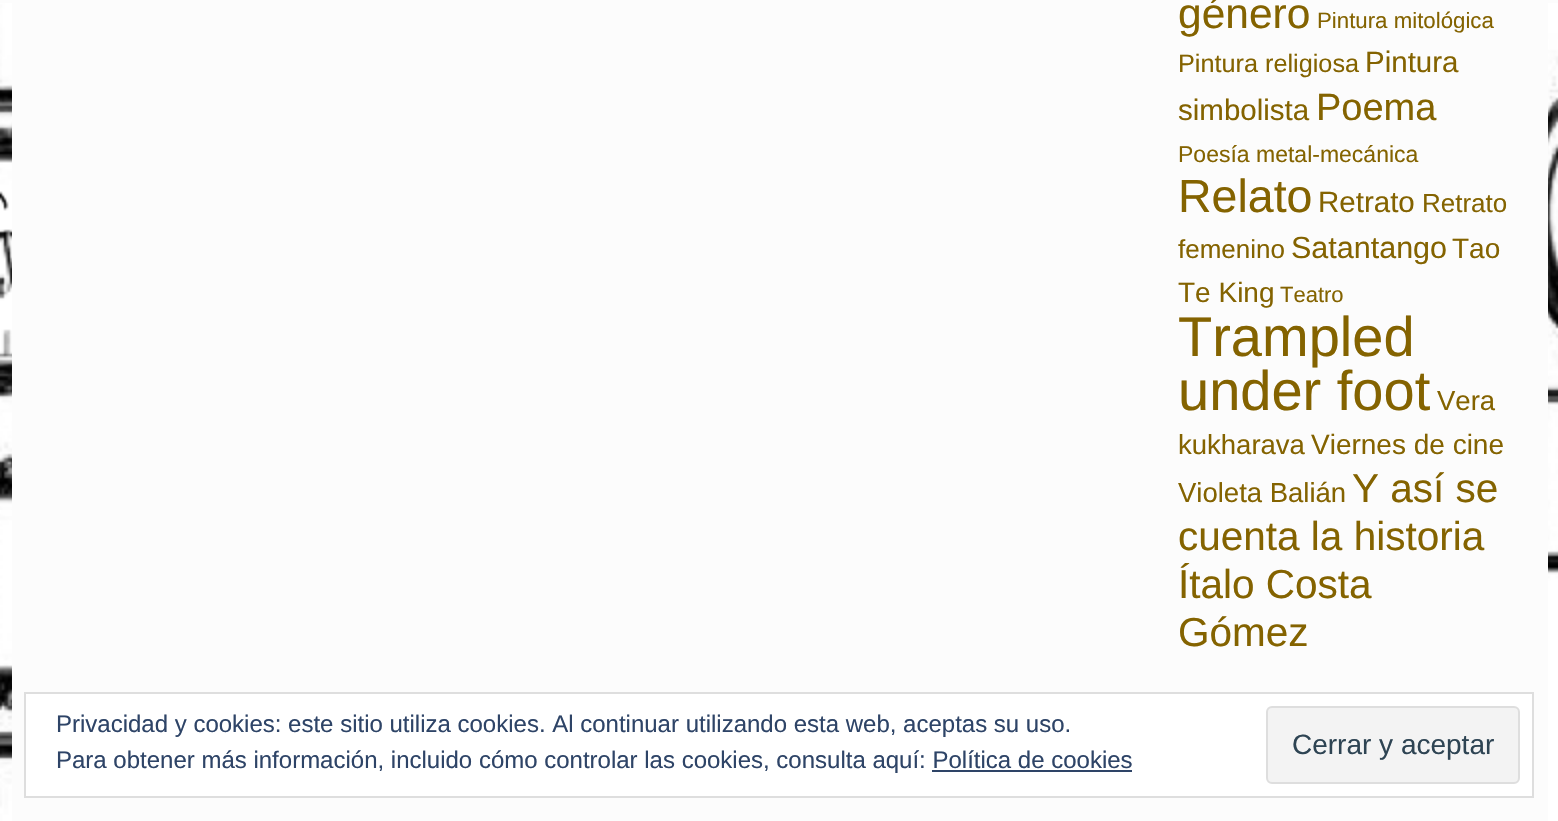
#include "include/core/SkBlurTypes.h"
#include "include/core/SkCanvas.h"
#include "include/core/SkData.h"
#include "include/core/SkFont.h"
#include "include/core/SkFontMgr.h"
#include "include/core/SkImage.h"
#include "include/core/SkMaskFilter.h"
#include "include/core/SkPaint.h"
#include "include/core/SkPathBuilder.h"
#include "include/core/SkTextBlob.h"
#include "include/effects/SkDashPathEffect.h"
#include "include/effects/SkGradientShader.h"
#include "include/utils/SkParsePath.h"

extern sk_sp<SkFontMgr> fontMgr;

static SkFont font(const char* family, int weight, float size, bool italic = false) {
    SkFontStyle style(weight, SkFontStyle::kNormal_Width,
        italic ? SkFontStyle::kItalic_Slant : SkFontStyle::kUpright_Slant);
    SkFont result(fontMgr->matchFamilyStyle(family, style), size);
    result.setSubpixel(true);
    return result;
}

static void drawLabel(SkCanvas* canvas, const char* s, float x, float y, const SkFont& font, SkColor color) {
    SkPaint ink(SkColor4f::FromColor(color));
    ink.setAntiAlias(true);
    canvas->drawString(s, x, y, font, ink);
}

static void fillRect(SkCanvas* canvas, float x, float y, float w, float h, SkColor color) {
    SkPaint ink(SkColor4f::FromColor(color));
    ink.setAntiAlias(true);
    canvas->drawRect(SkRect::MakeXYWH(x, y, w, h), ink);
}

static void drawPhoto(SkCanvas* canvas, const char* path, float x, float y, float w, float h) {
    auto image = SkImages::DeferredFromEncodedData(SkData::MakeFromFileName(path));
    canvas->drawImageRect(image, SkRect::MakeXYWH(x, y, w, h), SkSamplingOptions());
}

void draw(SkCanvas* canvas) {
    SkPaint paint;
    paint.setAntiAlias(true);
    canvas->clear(0xFFFCFCFC);
    drawPhoto(canvas, "assets/img1.png", 0, 3, 1558, 818);
    fillRect(canvas, 12, 3, 1536, 818, 0xFFFCFCFC);
    SkFont font1 = font("Liberation Sans", 400, 42.5f);
    drawLabel(canvas, "género", 1178, 28, font1, 0xFF846300);
    SkFont font2 = font("Liberation Sans", 400, 22.25f);
    drawLabel(canvas, "Pintura mitológica", 1317, 28, font2, 0xFF846300);
    SkFont font3 = font("Liberation Sans", 400, 25.25f);
    drawLabel(canvas, "Pintura religiosa", 1178, 72, font3, 0xFF846300);
    SkFont font4 = font("Liberation Sans", 400, 29.5f);
    drawLabel(canvas, "Pintura", 1365, 72, font4, 0xFF846300);
    drawLabel(canvas, "simbolista", 1178, 120, font4, 0xFF846300);
    SkFont font5 = font("Liberation Sans", 400, 38);
    drawLabel(canvas, "Poema", 1316, 120, font5, 0xFF846300);
    SkFont font6 = font("Liberation Sans", 400, 23);
    drawLabel(canvas, "Poesía metal-mecánica", 1178, 162, font6, 0xFF846300);
    SkFont font7 = font("Liberation Sans", 400, 46.5f);
    drawLabel(canvas, "Relato", 1178, 212, font7, 0xFF846300);
    drawLabel(canvas, "Retrato", 1318, 212, font4, 0xFF846300);
    SkFont font8 = font("Liberation Sans", 400, 26);
    drawLabel(canvas, "Retrato", 1422, 212, font8, 0xFF846300);
    drawLabel(canvas, "femenino", 1178, 258, font8, 0xFF846300);
    SkFont font9 = font("Liberation Sans", 400, 30.5f);
    drawLabel(canvas, "Satantango", 1291, 258, font9, 0xFF846300);
    SkFont font10 = font("Liberation Sans", 400, 28);
    drawLabel(canvas, "Tao", 1452, 258, font10, 0xFF846300);
    drawLabel(canvas, "Te King", 1178, 302, font10, 0xFF846300);
    SkFont font11 = font("Liberation Sans", 400, 22);
    drawLabel(canvas, "Teatro", 1280, 302, font11, 0xFF846300);
    SkFont font12 = font("Liberation Sans", 400, 56);
    drawLabel(canvas, "Trampled", 1178, 356, font12, 0xFF846300);
    drawLabel(canvas, "under foot", 1178, 410, font12, 0xFF846300);
    SkFont font13 = font("Liberation Sans", 400, 27.5f);
    drawLabel(canvas, "Vera", 1437, 410, font13, 0xFF846300);
    drawLabel(canvas, "kukharava", 1178, 454, font13, 0xFF846300);
    drawLabel(canvas, "Viernes de cine", 1311, 454, font10, 0xFF846300);
    drawLabel(canvas, "Violeta Balián", 1178, 502, font13, 0xFF846300);
    SkFont font14 = font("Liberation Sans", 400, 40.5f);
    drawLabel(canvas, "Y así se", 1352, 502, font14, 0xFF846300);
    drawLabel(canvas, "cuenta la historia", 1178, 550, font14, 0xFF846300);
    drawLabel(canvas, "Ítalo Costa", 1178, 598, font14, 0xFF846300);
    drawLabel(canvas, "Gómez", 1178, 646, font14, 0xFF846300);
    paint.setColor(0xFFFFFFFF);
    canvas->drawRect(SkRect::MakeXYWH(25, 693, 1508, 104), paint);
    paint.setStroke(true);
    paint.setStrokeWidth(2);
    paint.setColor(0xFFDEDEDE);
    canvas->drawRect(SkRect::MakeXYWH(25, 693, 1508, 104), paint);
    SkFont font15 = font("Liberation Sans", 400, 24);
    drawLabel(canvas, "Privacidad y cookies: este sitio utiliza cookies. Al continuar utilizando esta web, aceptas su uso.", 56, 732, font15, 0xFF2E4467);
    drawLabel(canvas, "Para obtener más información, incluido cómo controlar las cookies, consulta aquí: Política de cookies", 56, 768, font15, 0xFF2E4467);
    paint.setStroke(false);
    paint.setColor(0xFFF3F3F3);
    canvas->drawRoundRect(SkRect::MakeXYWH(1267, 707, 252, 76), 5, 5, paint);
    paint.setStroke(true);
    paint.setColor(0xFFDEDEDE);
    canvas->drawRoundRect(SkRect::MakeXYWH(1267, 707, 252, 76), 5, 5, paint);
    drawLabel(canvas, "Cerrar y aceptar", 1292, 754, font10, 0xFF2E4453);
    fillRect(canvas, 932, 770, 200, 2, 0xFF2E4467);
}
